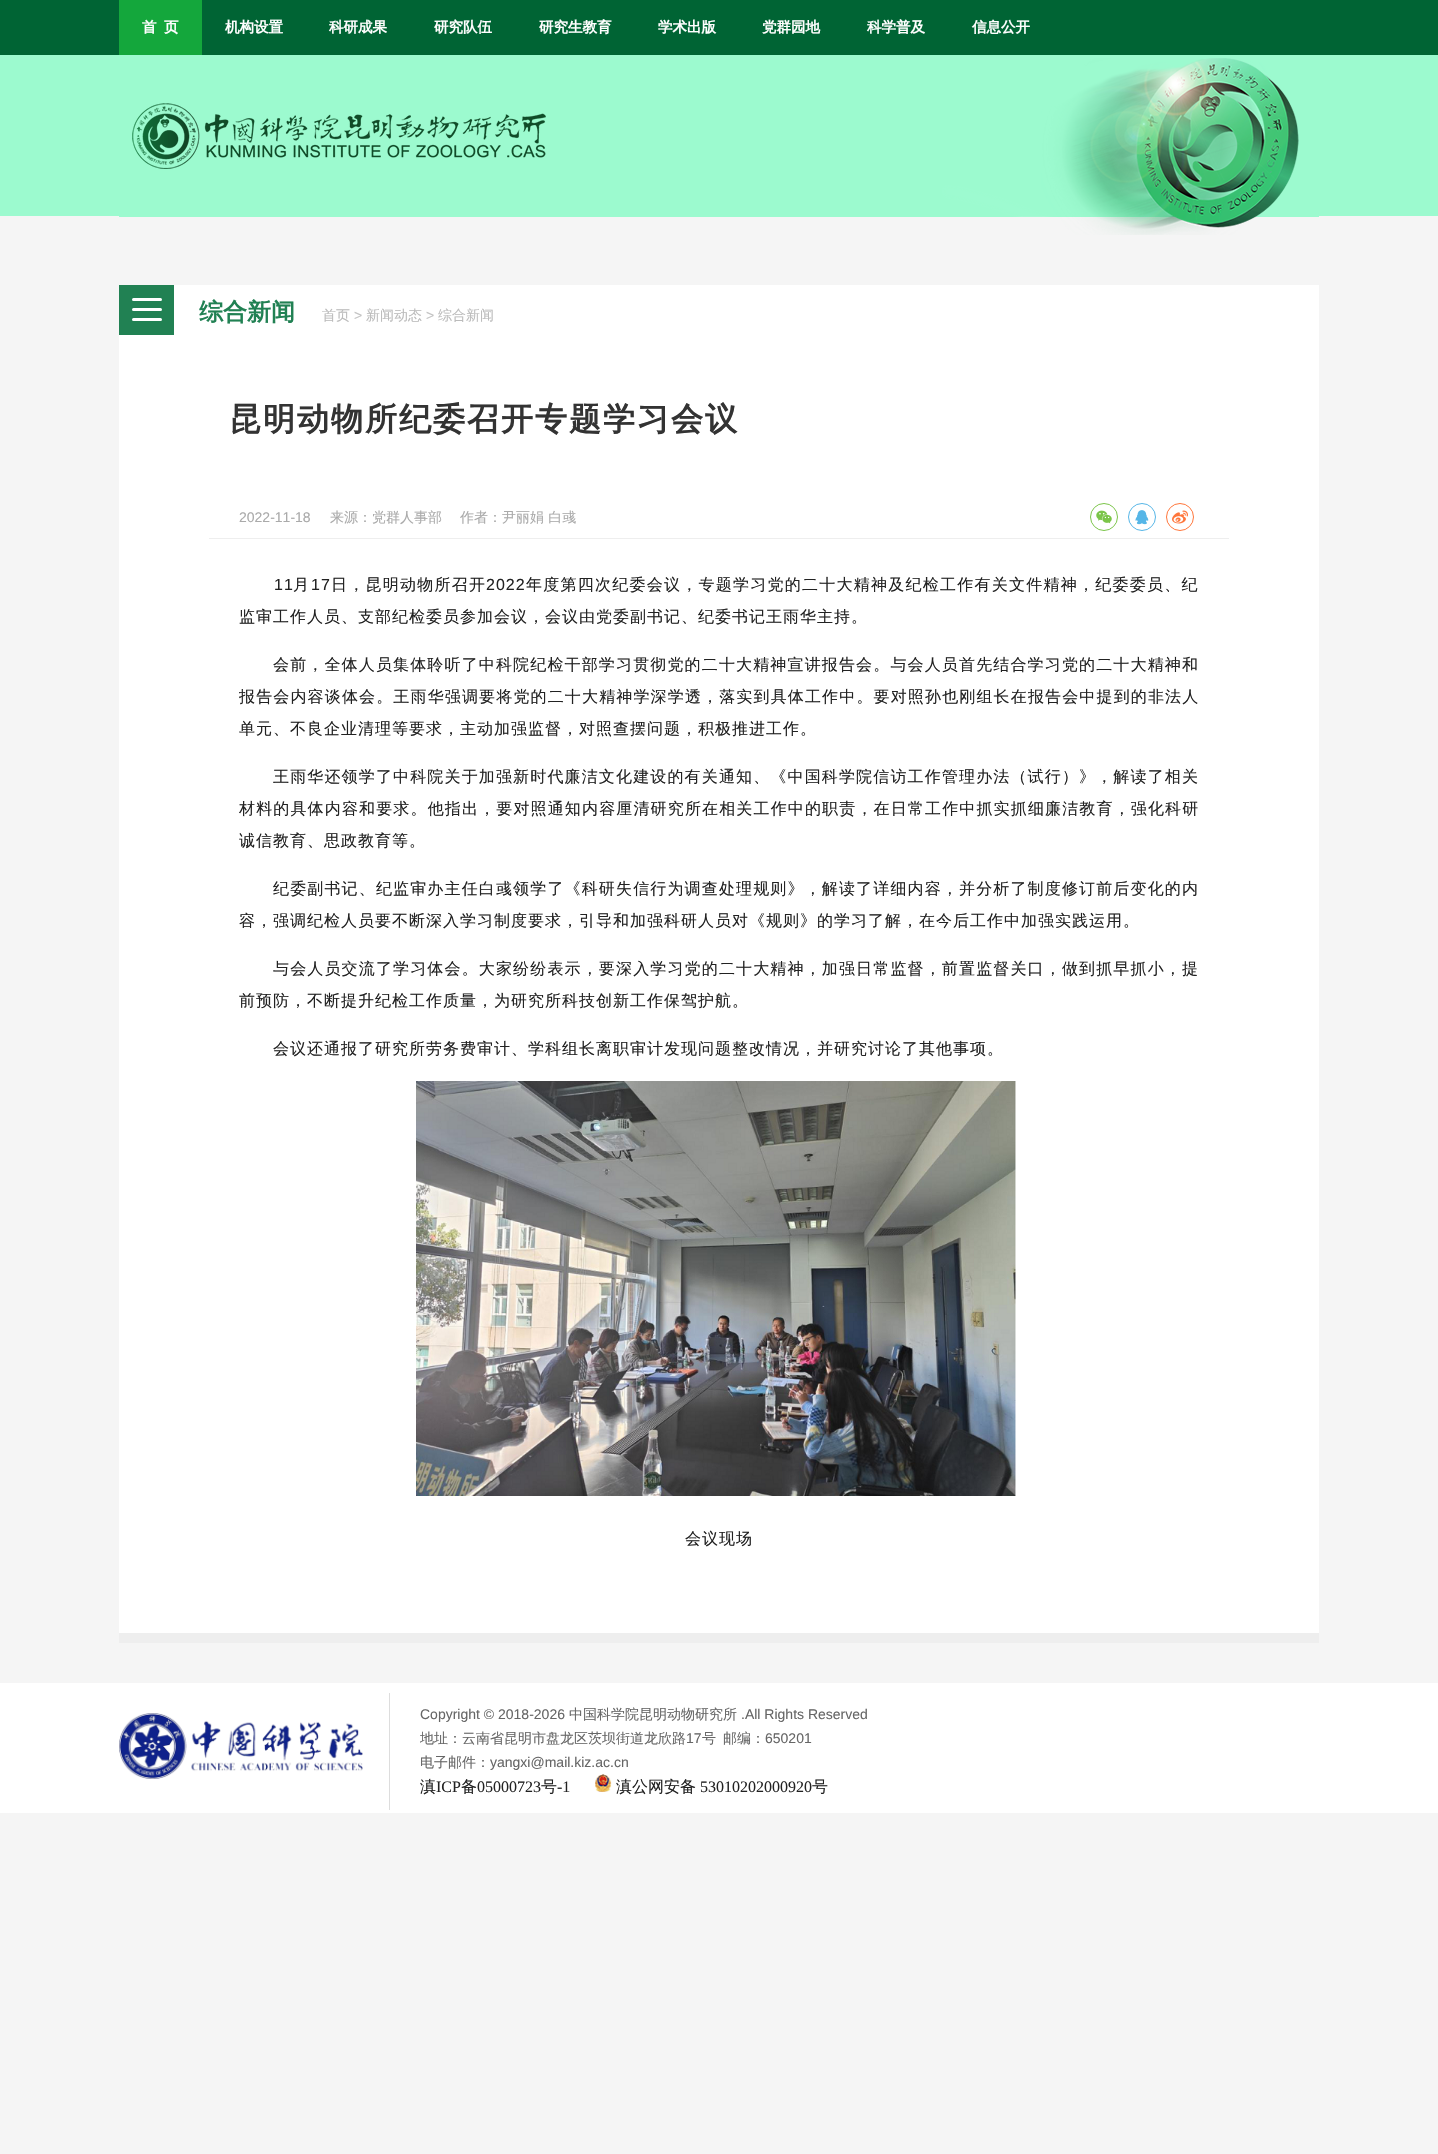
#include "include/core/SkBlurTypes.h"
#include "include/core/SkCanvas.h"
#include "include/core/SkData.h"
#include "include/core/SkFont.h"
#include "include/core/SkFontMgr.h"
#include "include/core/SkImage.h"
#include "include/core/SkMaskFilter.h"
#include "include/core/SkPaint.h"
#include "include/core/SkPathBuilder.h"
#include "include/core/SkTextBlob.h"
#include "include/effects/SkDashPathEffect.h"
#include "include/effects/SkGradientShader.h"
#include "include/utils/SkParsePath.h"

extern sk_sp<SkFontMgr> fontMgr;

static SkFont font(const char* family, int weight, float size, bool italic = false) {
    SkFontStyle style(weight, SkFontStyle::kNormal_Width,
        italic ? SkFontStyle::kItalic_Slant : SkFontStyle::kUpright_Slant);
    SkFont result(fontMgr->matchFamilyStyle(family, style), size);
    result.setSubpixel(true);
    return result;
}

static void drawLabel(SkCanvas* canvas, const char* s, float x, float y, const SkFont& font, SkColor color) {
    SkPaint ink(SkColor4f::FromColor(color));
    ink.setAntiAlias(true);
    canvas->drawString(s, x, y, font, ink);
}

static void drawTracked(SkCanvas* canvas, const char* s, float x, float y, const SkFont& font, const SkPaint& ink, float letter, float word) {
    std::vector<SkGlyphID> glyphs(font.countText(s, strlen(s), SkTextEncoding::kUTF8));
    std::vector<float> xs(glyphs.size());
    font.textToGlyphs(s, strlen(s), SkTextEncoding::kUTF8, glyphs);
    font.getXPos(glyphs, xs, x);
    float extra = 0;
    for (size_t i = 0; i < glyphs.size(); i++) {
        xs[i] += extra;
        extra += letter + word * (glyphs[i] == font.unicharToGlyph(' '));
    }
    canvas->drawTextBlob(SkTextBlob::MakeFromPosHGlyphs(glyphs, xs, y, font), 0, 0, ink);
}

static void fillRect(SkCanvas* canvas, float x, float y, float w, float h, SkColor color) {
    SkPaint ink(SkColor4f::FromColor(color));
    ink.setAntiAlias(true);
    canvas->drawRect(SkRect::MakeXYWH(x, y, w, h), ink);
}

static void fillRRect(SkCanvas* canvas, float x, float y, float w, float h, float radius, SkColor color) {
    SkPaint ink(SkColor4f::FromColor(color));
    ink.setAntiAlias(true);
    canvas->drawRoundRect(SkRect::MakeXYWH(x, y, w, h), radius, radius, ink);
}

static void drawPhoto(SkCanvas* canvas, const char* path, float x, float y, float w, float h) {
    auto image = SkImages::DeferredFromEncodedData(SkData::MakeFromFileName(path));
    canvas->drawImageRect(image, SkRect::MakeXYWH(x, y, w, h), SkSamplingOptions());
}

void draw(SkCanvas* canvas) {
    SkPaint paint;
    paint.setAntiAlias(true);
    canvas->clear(0xFFF5F5F5);
    fillRect(canvas, 0, 0, 1438, 55, 0xFF006434);
    fillRect(canvas, 119, 0, 83, 55, 0xFF14A73C);
    SkFont font1 = font("WenQuanYi Zen Hei", 700, 14.5f);
    drawLabel(canvas, "首", 142, 32, font1, 0xFFFFFFFF);
    drawLabel(canvas, "页", 164, 32, font1, 0xFFFFFFFF);
    drawLabel(canvas, "机构设置", 225, 32, font1, 0xFFFFFFFF);
    drawLabel(canvas, "科研成果", 329, 32, font1, 0xFFFFFFFF);
    drawLabel(canvas, "研究队伍", 434, 32, font1, 0xFFFFFFFF);
    drawLabel(canvas, "研究生教育", 539, 32, font1, 0xFFFFFFFF);
    drawLabel(canvas, "学术出版", 658, 32, font1, 0xFFFFFFFF);
    drawLabel(canvas, "党群园地", 762, 32, font1, 0xFFFFFFFF);
    drawLabel(canvas, "科学普及", 867, 32, font1, 0xFFFFFFFF);
    drawLabel(canvas, "信息公开", 972, 32, font1, 0xFFFFFFFF);
    fillRect(canvas, 0, 55, 1438, 161, 0xFF9CFACF);
    drawPhoto(canvas, "assets/img1.png", 119, 58, 1200, 177);
    fillRect(canvas, 119, 285, 1200, 1348, 0xFFFFFFFF);
    fillRect(canvas, 119, 285, 55, 50, 0xFF218153);
    fillRRect(canvas, 132, 298, 30, 3, 1.5f, 0xFFFFFFFF);
    fillRRect(canvas, 132, 308, 30, 3, 1.5f, 0xFFFFFFFF);
    fillRRect(canvas, 132, 318, 30, 3, 1.5f, 0xFFFFFFFF);
    SkFont font2 = font("WenQuanYi Zen Hei", 700, 24);
    drawLabel(canvas, "综合新闻", 199, 320, font2, 0xFF218153);
    SkFont font3 = font("WenQuanYi Zen Hei", 500, 14);
    drawLabel(canvas, "首页", 322, 320, font3, 0xFFBBBBBB);
    SkFont font4 = font("Liberation Sans", 400, 14);
    drawLabel(canvas, ">", 354, 320, font4, 0xFFC2C2C2);
    drawLabel(canvas, "新闻动态", 366, 320, font3, 0xFFBBBBBB);
    drawLabel(canvas, ">", 426, 320, font4, 0xFFC2C2C2);
    drawLabel(canvas, "综合新闻", 438, 320, font3, 0xFFBBBBBB);
    SkFont font5 = font("WenQuanYi Zen Hei", 700, 32);
    paint.setColor(0xFF333333);
    drawTracked(canvas, "昆明动物所纪委召开专题学习会议", 229, 430, font5, paint, 2, 0);
    fillRect(canvas, 209, 538, 1020, 1, 0xFFEEEEEE);
    drawLabel(canvas, "2022-11-18", 239, 522, font4, 0xFFAAAAAA);
    drawLabel(canvas, "来源：党群人事部", 330, 522, font3, 0xFFAAAAAA);
    drawLabel(canvas, "作者：", 460, 522, font3, 0xFFAAAAAA);
    drawLabel(canvas, "尹丽娟 白彧", 502, 522, font3, 0xFFAAAAAA);
    paint.setStroke(true);
    paint.setStrokeWidth(1);
    paint.setColor(0xFF7BC549);
    canvas->drawCircle(1104, 517, 13.5f, paint);
    drawPhoto(canvas, "assets/img2.png", 1096, 510, 16, 14);
    paint.setColor(0xFF56B6E7);
    canvas->drawCircle(1142, 517, 13.5f, paint);
    drawPhoto(canvas, "assets/img3.png", 1135, 510, 14, 15);
    paint.setColor(0xFFFF763B);
    canvas->drawCircle(1180, 517, 13.5f, paint);
    drawPhoto(canvas, "assets/img4.png", 1172, 510, 16, 14);
    SkFont font6 = font("Liberation Sans", 400, 16);
    paint.setStroke(false);
    paint.setColor(0xFF222222);
    drawTracked(canvas, "11", 274, 590, font6, paint, 1, 0);
    SkFont font7 = font("WenQuanYi Zen Hei", 500, 16);
    drawTracked(canvas, "月", 293, 590, font7, paint, 1, 0);
    drawTracked(canvas, "17", 311, 590, font6, paint, 1, 0);
    drawTracked(canvas, "日，昆明动物所召开", 331, 590, font7, paint, 1.25f, 0);
    drawTracked(canvas, "2022", 486, 590, font6, paint, 1, 0);
    drawTracked(canvas, "年度第四次纪委会议，专题学习党的二十大精神及纪检工作有关文件精神，纪委委员、纪", 526, 590, font7, paint, 1.25f, 0);
    drawTracked(canvas, "监审工作人员、支部纪检委员参加会议，会议由党委副书记、纪委书记王雨华主持。", 239, 622, font7, paint, 1, 0);
    drawTracked(canvas, "会前，全体人员集体聆听了中科院纪检干部学习贯彻党的二十大精神宣讲报告会。与会人员首先结合学习党的二十大精神和", 273, 670, font7, paint, 1.15f, 0);
    drawTracked(canvas, "报告会内容谈体会。王雨华强调要将党的二十大精神学深学透，落实到具体工作中。要对照孙也刚组长在报告会中提到的非法人", 239, 702, font7, paint, 1.15f, 0);
    drawTracked(canvas, "单元、不良企业清理等要求，主动加强监督，对照查摆问题，积极推进工作。", 239, 734, font7, paint, 1, 0);
    drawTracked(canvas, "王雨华还领学了中科院关于加强新时代廉洁文化建设的有关通知、《中国科学院信访工作管理办法（试行）》，解读了相关", 273, 782, font7, paint, 1.15f, 0);
    drawTracked(canvas, "材料的具体内容和要求。他指出，要对照通知内容厘清研究所在相关工作中的职责，在日常工作中抓实抓细廉洁教育，强化科研", 239, 814, font7, paint, 1.15f, 0);
    drawTracked(canvas, "诚信教育、思政教育等。", 239, 846, font7, paint, 1, 0);
    drawTracked(canvas, "纪委副书记、纪监审办主任白彧领学了《科研失信行为调查处理规则》，解读了详细内容，并分析了制度修订前后变化的内", 273, 894, font7, paint, 1.15f, 0);
    drawTracked(canvas, "容，强调纪检人员要不断深入学习制度要求，引导和加强科研人员对《规则》的学习了解，在今后工作中加强实践运用。", 239, 926, font7, paint, 1, 0);
    drawTracked(canvas, "与会人员交流了学习体会。大家纷纷表示，要深入学习党的二十大精神，加强日常监督，前置监督关口，做到抓早抓小，提", 273, 974, font7, paint, 1.15f, 0);
    drawTracked(canvas, "前预防，不断提升纪检工作质量，为研究所科技创新工作保驾护航。", 239, 1006, font7, paint, 1, 0);
    drawTracked(canvas, "会议还通报了研究所劳务费审计、学科组长离职审计发现问题整改情况，并研究讨论了其他事项。", 273, 1054, font7, paint, 1, 0);
    drawPhoto(canvas, "assets/img5.png", 416, 1081, 600, 415);
    drawTracked(canvas, "会议现场", 685, 1544, font7, paint, 1, 0);
    fillRect(canvas, 119, 1633, 1200, 10, 0xFFEEEEEE);
    fillRect(canvas, 0, 1683, 1438, 130, 0xFFFFFFFF);
    drawPhoto(canvas, "assets/img6.png", 119, 1713, 244, 66);
    fillRect(canvas, 389, 1693, 1, 117, 0xFFDDDDDD);
    drawLabel(canvas, "Copyright © 2018-2026", 420, 1719, font4, 0xFF666666);
    drawLabel(canvas, "中国科学院昆明动物研究所", 569, 1719, font3, 0xFF666666);
    drawLabel(canvas, ".All Rights Reserved", 741, 1719, font4, 0xFF666666);
    drawLabel(canvas, "地址：云南省昆明市盘龙区茨坝街道龙欣路", 420, 1743, font3, 0xFF666666);
    drawLabel(canvas, "17", 686, 1743, font4, 0xFF666666);
    drawLabel(canvas, "号", 702, 1743, font3, 0xFF666666);
    drawLabel(canvas, "邮编：", 723, 1743, font3, 0xFF666666);
    drawLabel(canvas, "650201", 765, 1743, font4, 0xFF666666);
    drawLabel(canvas, "电子邮件：", 420, 1767, font3, 0xFF666666);
    drawLabel(canvas, "yangxi@mail.kiz.ac.cn", 490, 1767, font4, 0xFF666666);
    drawLabel(canvas, "滇", 420, 1792, font7, 0xFF222222);
    SkFont font8 = font("Liberation Serif", 400, 16);
    drawLabel(canvas, "ICP", 436, 1792, font8, 0xFF222222);
    drawLabel(canvas, "备", 461, 1792, font7, 0xFF222222);
    drawLabel(canvas, "05000723", 477, 1792, font8, 0xFF222222);
    drawLabel(canvas, "号", 541, 1792, font7, 0xFF222222);
    drawLabel(canvas, "-1", 557, 1792, font8, 0xFF222222);
    drawPhoto(canvas, "assets/img7.png", 595, 1774, 17, 18);
    drawLabel(canvas, "滇公网安备", 616, 1792, font7, 0xFF222222);
    drawLabel(canvas, "53010202000920", 700, 1792, font8, 0xFF222222);
    drawLabel(canvas, "号", 812, 1792, font7, 0xFF222222);
}
